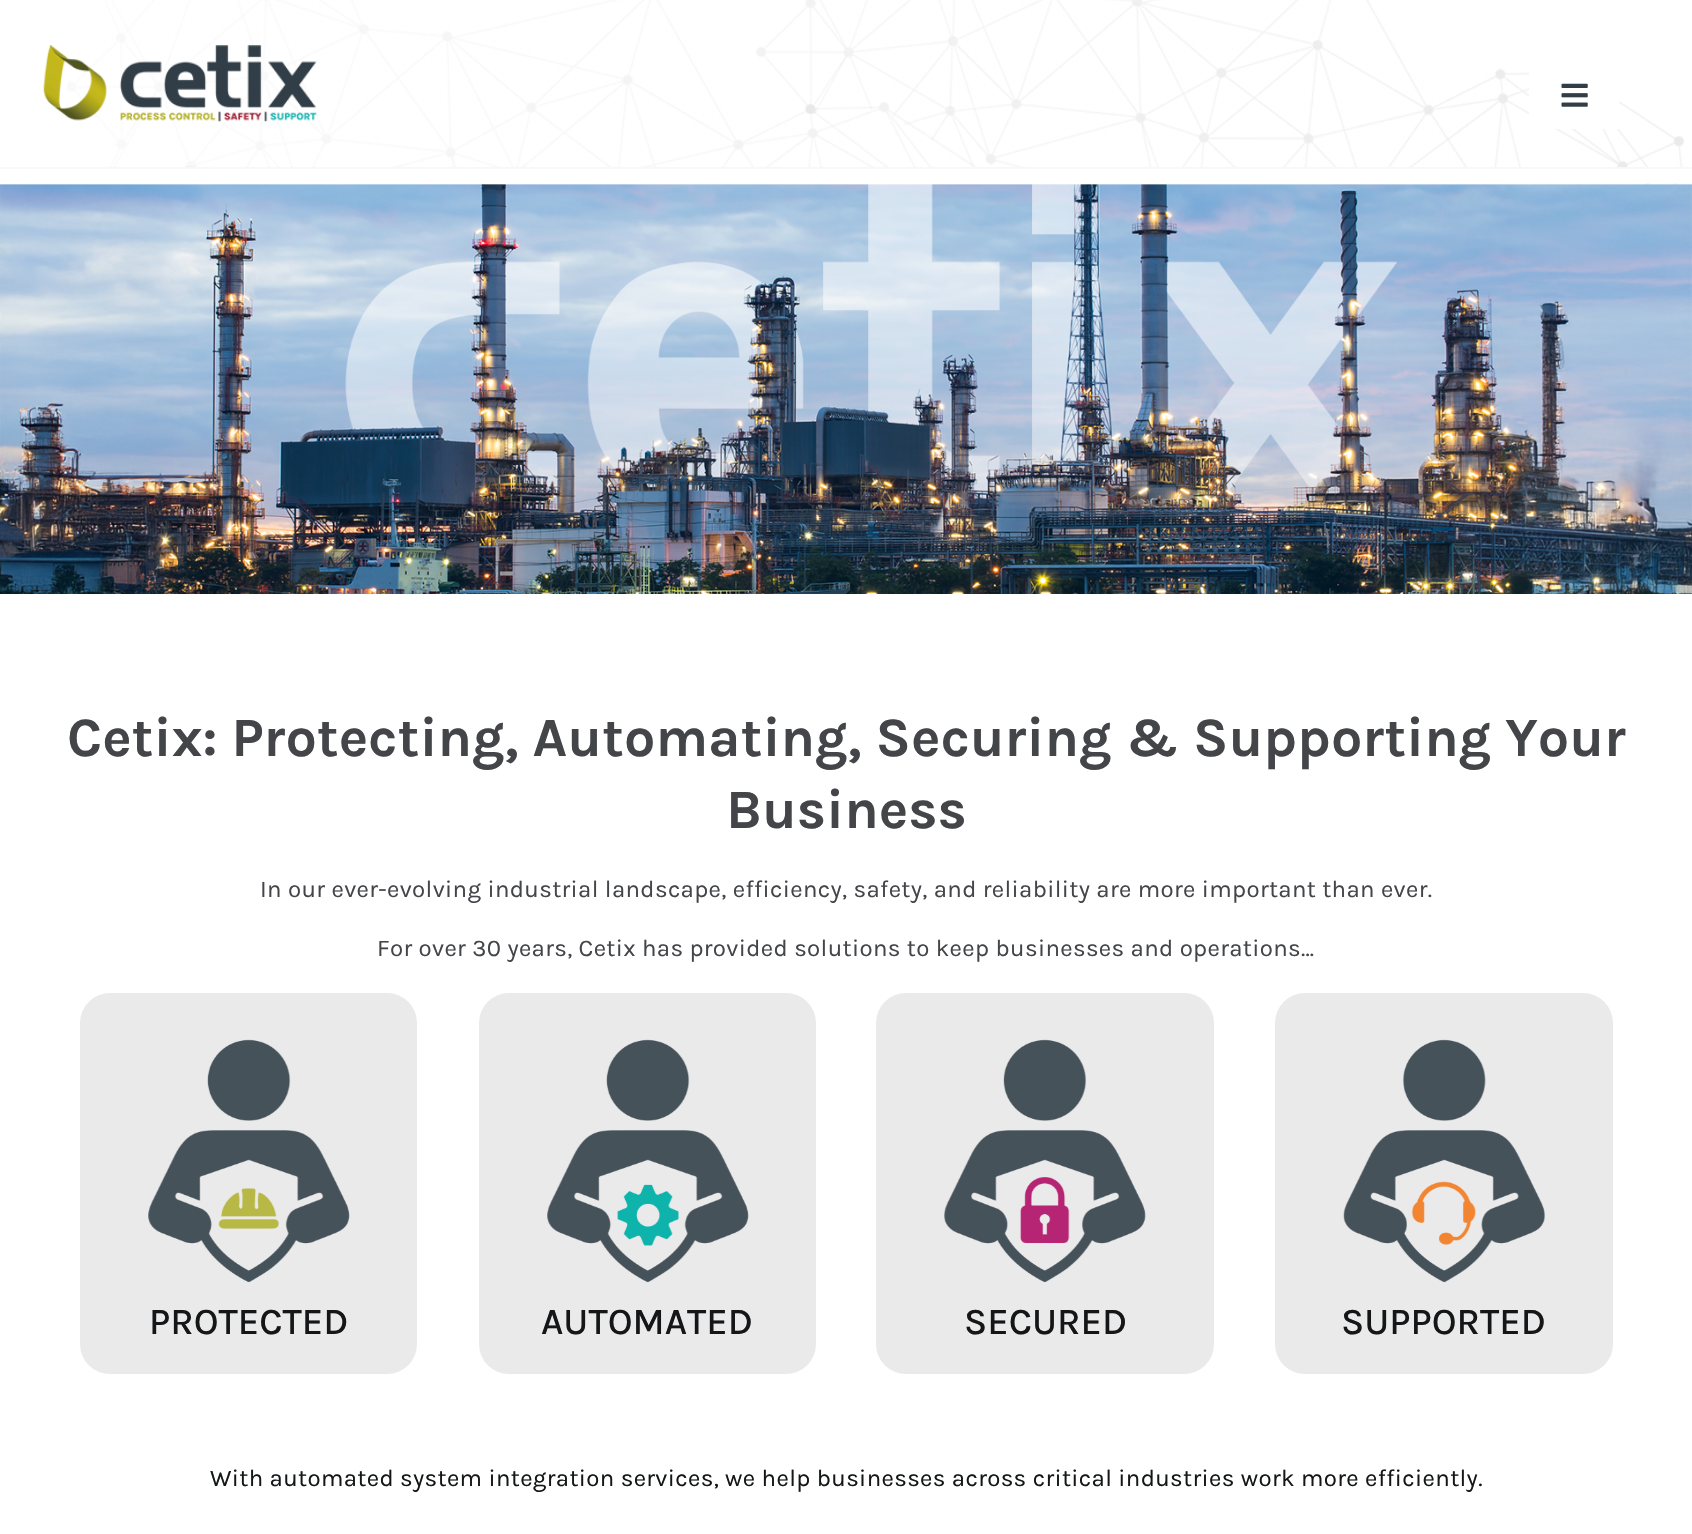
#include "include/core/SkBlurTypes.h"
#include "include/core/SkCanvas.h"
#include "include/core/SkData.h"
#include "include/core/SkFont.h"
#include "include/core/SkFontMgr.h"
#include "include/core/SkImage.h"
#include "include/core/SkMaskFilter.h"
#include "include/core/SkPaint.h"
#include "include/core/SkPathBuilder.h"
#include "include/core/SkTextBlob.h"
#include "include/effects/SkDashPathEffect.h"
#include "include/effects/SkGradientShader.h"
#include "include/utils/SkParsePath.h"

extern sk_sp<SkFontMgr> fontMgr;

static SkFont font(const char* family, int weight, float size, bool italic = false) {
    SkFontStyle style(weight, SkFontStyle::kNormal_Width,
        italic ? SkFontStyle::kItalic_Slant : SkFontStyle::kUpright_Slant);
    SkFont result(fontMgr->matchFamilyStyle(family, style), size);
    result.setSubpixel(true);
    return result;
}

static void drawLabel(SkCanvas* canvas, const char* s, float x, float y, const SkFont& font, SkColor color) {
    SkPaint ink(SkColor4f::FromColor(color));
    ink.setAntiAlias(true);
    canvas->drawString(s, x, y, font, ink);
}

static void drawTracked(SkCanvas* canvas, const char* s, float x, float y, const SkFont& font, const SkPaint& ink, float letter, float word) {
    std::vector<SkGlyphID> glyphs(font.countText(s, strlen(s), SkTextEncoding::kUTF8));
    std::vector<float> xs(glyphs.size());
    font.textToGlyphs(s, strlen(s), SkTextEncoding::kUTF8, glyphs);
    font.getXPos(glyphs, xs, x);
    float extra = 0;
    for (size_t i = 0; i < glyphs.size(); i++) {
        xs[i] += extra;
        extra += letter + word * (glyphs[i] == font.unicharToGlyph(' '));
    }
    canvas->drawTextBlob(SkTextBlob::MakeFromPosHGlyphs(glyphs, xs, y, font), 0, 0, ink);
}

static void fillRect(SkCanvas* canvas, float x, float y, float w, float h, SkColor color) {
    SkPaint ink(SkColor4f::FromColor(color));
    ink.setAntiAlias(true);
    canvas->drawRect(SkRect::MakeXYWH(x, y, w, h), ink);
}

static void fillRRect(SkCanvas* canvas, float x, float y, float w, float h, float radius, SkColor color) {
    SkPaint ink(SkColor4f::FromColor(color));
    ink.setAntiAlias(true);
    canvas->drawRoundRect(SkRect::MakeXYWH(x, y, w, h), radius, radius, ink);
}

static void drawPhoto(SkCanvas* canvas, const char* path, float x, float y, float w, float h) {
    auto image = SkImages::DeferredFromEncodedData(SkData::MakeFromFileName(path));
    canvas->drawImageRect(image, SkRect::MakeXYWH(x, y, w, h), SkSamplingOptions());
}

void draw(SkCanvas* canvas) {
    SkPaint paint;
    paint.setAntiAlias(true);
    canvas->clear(0xFFFFFFFF);
    drawPhoto(canvas, "assets/img1.png", 67, 0, 1618, 167);
    fillRect(canvas, 0, 167, 1692, 2, 0xFFF8F8F8);
    drawPhoto(canvas, "assets/img2.png", 43, 45, 274, 77);
    fillRect(canvas, 1529, 66, 90, 63, 0xFFFFFFFF);
    drawPhoto(canvas, "assets/img3.png", 1561, 83, 27, 24);
    drawPhoto(canvas, "assets/img5.png", 0, 184, 1692, 410);
    drawPhoto(canvas, "assets/img6.png", 0, 184, 1692, 1);
    drawPhoto(canvas, "assets/img4.png", 1551, 183, 126, 2);
    SkFont font1 = font("Karla", 700, 55.5f);
    drawLabel(canvas, "Cetix: Protecting, Automating, Securing & Supporting Your", 67, 756, font1, 0xFF434549);
    drawLabel(canvas, "Business", 726, 828, font1, 0xFF434549);
    SkFont font2 = font("Karla", 400, 24);
    paint.setColor(0xFF434549);
    drawTracked(canvas, "In our ever-evolving industrial landscape, efficiency, safety, and reliability are more important than ever.", 260, 897, font2, paint, 0.36f, 0);
    drawTracked(canvas, "For over 30 years, Cetix has provided solutions to keep businesses and operations…", 377, 956, font2, paint, 0.36f, 0);
    fillRRect(canvas, 80, 993, 337, 381, 30, 0xFFEAEAEA);
    drawPhoto(canvas, "assets/img7.png", 148, 1039, 202, 244);
    SkFont font3 = font("Karla", 500, 37.5f);
    drawLabel(canvas, "PROTECTED", 149, 1334, font3, 0xFF141617);
    fillRRect(canvas, 479, 993, 337, 381, 30, 0xFFEAEAEA);
    drawPhoto(canvas, "assets/img8.png", 547, 1039, 202, 244);
    drawLabel(canvas, "AUTOMATED", 541, 1334, font3, 0xFF141617);
    fillRRect(canvas, 876, 993, 338, 381, 30, 0xFFEAEAEA);
    drawPhoto(canvas, "assets/img9.png", 944, 1039, 202, 244);
    drawLabel(canvas, "SECURED", 964, 1334, font3, 0xFF141617);
    fillRRect(canvas, 1275, 993, 338, 381, 30, 0xFFEAEAEA);
    drawPhoto(canvas, "assets/img10.png", 1343, 1039, 202, 244);
    drawLabel(canvas, "SUPPORTED", 1341, 1334, font3, 0xFF141617);
    paint.setColor(0xFF141617);
    drawTracked(canvas, "With automated system integration services, we help businesses across critical industries work more efficiently.", 210, 1486, font2, paint, 0.36f, 0);
}
